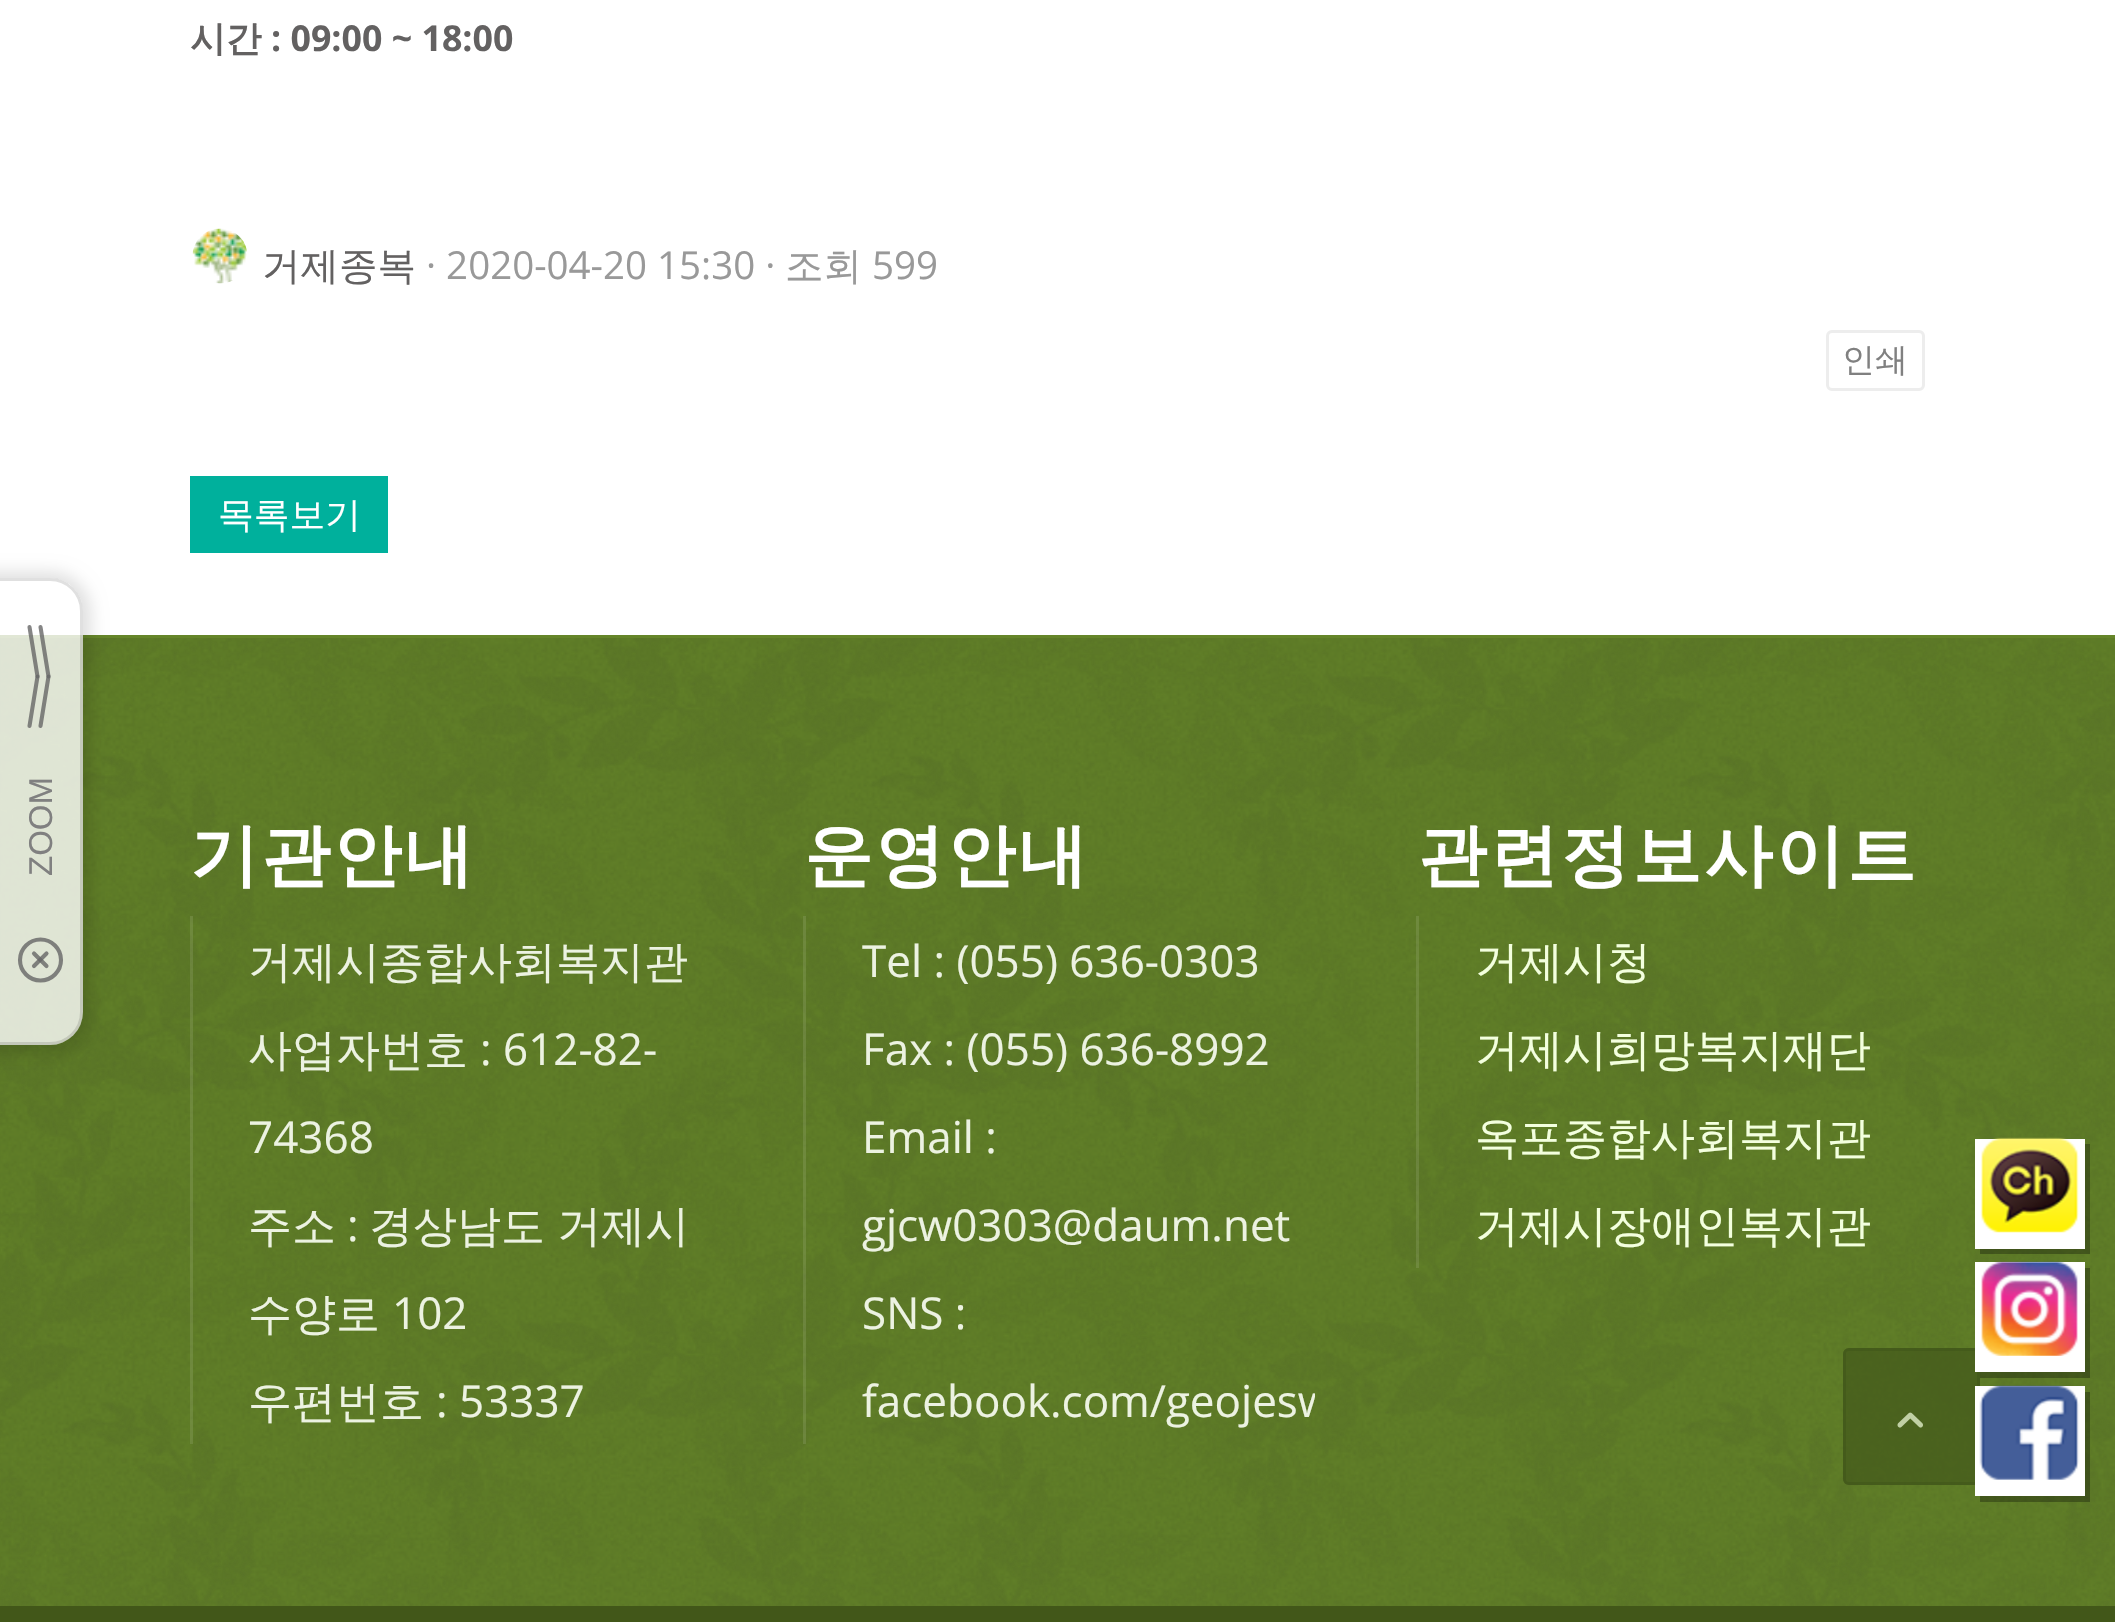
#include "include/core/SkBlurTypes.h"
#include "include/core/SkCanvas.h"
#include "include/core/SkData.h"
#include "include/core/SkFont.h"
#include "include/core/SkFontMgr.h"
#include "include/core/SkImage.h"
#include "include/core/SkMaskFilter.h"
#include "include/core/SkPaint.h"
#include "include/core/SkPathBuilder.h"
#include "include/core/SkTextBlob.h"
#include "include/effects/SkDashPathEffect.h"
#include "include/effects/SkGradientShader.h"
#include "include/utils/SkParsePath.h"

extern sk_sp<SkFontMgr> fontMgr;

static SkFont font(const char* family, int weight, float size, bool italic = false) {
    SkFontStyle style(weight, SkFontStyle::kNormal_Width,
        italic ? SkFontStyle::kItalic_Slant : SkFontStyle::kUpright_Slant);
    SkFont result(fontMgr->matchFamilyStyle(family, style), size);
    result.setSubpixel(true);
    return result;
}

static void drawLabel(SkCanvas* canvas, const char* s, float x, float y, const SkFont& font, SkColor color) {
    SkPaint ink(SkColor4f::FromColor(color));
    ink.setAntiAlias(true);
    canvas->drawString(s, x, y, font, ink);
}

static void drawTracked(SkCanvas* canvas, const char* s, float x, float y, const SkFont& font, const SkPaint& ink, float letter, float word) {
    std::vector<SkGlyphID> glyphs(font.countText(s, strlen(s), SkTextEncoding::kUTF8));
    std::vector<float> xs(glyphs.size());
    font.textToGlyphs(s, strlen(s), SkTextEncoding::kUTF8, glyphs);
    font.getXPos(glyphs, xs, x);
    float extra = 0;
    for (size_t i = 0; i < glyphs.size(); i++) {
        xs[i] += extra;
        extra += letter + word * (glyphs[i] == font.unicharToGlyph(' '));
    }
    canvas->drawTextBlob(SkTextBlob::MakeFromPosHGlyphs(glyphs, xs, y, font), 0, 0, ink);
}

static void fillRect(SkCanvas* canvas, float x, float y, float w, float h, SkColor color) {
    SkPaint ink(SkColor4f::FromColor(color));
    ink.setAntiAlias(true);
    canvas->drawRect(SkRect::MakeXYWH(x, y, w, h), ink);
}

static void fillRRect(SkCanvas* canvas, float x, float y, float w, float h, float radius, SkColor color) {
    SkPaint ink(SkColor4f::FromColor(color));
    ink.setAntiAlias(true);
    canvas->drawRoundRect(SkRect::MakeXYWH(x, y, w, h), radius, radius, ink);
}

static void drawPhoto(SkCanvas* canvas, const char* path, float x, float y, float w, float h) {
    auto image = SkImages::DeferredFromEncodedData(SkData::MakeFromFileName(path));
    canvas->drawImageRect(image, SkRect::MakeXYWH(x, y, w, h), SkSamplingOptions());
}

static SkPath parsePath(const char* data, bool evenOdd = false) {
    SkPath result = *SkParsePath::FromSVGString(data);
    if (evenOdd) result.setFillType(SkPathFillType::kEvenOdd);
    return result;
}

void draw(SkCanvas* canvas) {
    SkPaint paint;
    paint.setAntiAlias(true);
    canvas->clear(0xFFFFFFFF);
    fillRect(canvas, 0, 635, 2115, 971, 0xFF658529);
    drawPhoto(canvas, "assets/img2.png", 0, 638, 2115, 968);
    canvas->save();
    canvas->clipPath(parsePath("M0 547H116V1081H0ZM-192 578H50C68 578 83 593 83 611V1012C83 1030 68 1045 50 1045H-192C-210 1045-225 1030-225 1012V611C-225 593-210 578-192 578Z", true), true);
    paint.setColor(0x1F000000);
    paint.setMaskFilter(SkMaskFilter::MakeBlur(kNormal_SkBlurStyle, 8));
    canvas->drawRoundRect(SkRect::MakeXYWH(-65, 572, 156, 484), 41, 41, paint);
    paint.setMaskFilter(nullptr);
    canvas->restore();
    fillRRect(canvas, -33, 578, 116, 467, 33, 0xCCFFFFFF);
    paint.setStroke(true);
    paint.setStrokeWidth(3);
    canvas->drawRoundRect(SkRect::MakeXYWH(-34.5f, 579.5f, 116, 464), 31.5f, 31.5f, paint);
    paint.setStrokeWidth(4.1f);
    paint.setStrokeCap(SkPaint::kRound_Cap);
    paint.setColor(0xCC666666);
    canvas->drawPath(parsePath("M40.5 627L48.5 676.5"), paint);
    canvas->drawPath(parsePath("M48.5 676.5L40.5 726"), paint);
    canvas->drawPath(parsePath("M37.5 676.5L29.5 627"), paint);
    canvas->drawPath(parsePath("M29.5 726L37.5 676.5"), paint);
    SkFont font1 = font("Liberation Sans", 400, 33);
    canvas->save();
    canvas->rotate(-90, 52, 876);
    drawLabel(canvas, "ZOOM", 52, 876, font1, 0xFF808080);
    canvas->restore();
    paint.setStrokeCap(SkPaint::kButt_Cap);
    paint.setColor(0xFF7E7F7C);
    canvas->drawCircle(40.5f, 960, 20.5f, paint);
    paint.setStrokeCap(SkPaint::kRound_Cap);
    paint.setStrokeJoin(SkPaint::kRound_Join);
    canvas->drawPath(parsePath("M46.5 953.5L34 966"), paint);
    paint.setColor(0xCC666666);
    canvas->drawPath(parsePath("M34 953.5L46.5 966"), paint);
    SkFont font2 = font("WenQuanYi Zen Hei", 700, 35.75f);
    drawLabel(canvas, "시간", 190, 51, font2, 0xFF636161);
    SkFont font3 = font("Open Sans", 700, 35.75f);
    drawLabel(canvas, ": 09:00 ~ 18:00", 271, 51, font3, 0xFF636161);
    drawPhoto(canvas, "assets/img1.png", 192, 228, 55, 56);
    SkFont font4 = font("WenQuanYi Zen Hei", 500, 38.5f);
    drawLabel(canvas, "거제종복", 262, 279, font4, 0xFF636161);
    SkFont font5 = font("Open Sans", 400, 38.5f);
    drawLabel(canvas, "· 2020-04-20 15:30 ·", 426, 279, font5, 0xFF999999);
    drawLabel(canvas, "조회", 785, 279, font4, 0xFF999999);
    drawLabel(canvas, "599", 872, 279, font5, 0xFF999999);
    paint.setStrokeWidth(3);
    paint.setStrokeCap(SkPaint::kButt_Cap);
    paint.setStrokeJoin(SkPaint::kMiter_Join);
    paint.setColor(0xFFEDEDED);
    canvas->drawRoundRect(SkRect::MakeXYWH(1827.5f, 331.5f, 96, 58), 4.5f, 4.5f, paint);
    SkFont font6 = font("WenQuanYi Zen Hei", 500, 33);
    drawLabel(canvas, "인쇄", 1842, 371, font6, 0xFF808080);
    fillRect(canvas, 190, 476, 198, 77, 0xFF00B09C);
    SkFont font7 = font("WenQuanYi Zen Hei", 500, 35.75f);
    drawLabel(canvas, "목록보기", 218, 527, font7, 0xFFFFFFFF);
    SkFont font8 = font("WenQuanYi Zen Hei", 700, 68.75f);
    paint.setStroke(false);
    paint.setColor(0xFFFFFFFF);
    drawTracked(canvas, "기관안내", 190, 879, font8, paint, 2.75f, 0);
    fillRect(canvas, 190, 916, 3, 528, 0x1AFFFFFF);
    SkFont font9 = font("WenQuanYi Zen Hei", 500, 44);
    drawLabel(canvas, "거제시종합사회복지관", 248, 977, font9, 0xFFECF2E1);
    drawLabel(canvas, "사업자번호", 248, 1065, font9, 0xFFECF2E1);
    SkFont font10 = font("Open Sans", 400, 44);
    drawLabel(canvas, ": 612-82-", 480, 1065, font10, 0xFFECF2E1);
    drawLabel(canvas, "74368", 248, 1153, font10, 0xFFECF2E1);
    drawLabel(canvas, "주소", 248, 1241, font9, 0xFFECF2E1);
    drawLabel(canvas, ":", 347, 1241, font10, 0xFFECF2E1);
    paint.setColor(0xFFECF2E1);
    drawTracked(canvas, "경상남도 거제시", 369, 1241, font9, paint, 0, -1);
    drawLabel(canvas, "수양로", 248, 1329, font9, 0xFFECF2E1);
    drawLabel(canvas, "102", 392, 1329, font10, 0xFFECF2E1);
    drawLabel(canvas, "우편번호", 248, 1417, font9, 0xFFECF2E1);
    drawLabel(canvas, ": 53337", 436, 1417, font10, 0xFFECF2E1);
    paint.setColor(0xFFFFFFFF);
    drawTracked(canvas, "운영안내", 804, 879, font8, paint, 2.75f, 0);
    fillRect(canvas, 803, 916, 3, 528, 0x1AFFFFFF);
    drawLabel(canvas, "Tel : (055) 636-0303", 862, 977, font10, 0xFFECF2E1);
    drawLabel(canvas, "Fax : (055) 636-8992", 862, 1065, font10, 0xFFECF2E1);
    drawLabel(canvas, "Email :", 862, 1153, font10, 0xFFECF2E1);
    drawLabel(canvas, "gjcw0303@daum.net", 862, 1241, font10, 0xFFECF2E1);
    drawLabel(canvas, "SNS :", 862, 1329, font10, 0xFFECF2E1);
    canvas->save();
    canvas->clipRect(SkRect::MakeXYWH(806, 916, 509, 528));
    drawLabel(canvas, "facebook.com/geojesw", 862, 1417, font10, 0xFFECF2E1);
    canvas->restore();
    drawTracked(canvas, "관련정보사이트", 1418, 879, font8, paint, 2.75f, 0);
    fillRect(canvas, 1416, 916, 3, 352, 0x1AFFFFFF);
    drawLabel(canvas, "거제시청", 1475, 977, font9, 0xFFF3FFDE);
    drawLabel(canvas, "거제시희망복지재단", 1475, 1065, font9, 0xFFF3FFDE);
    drawLabel(canvas, "옥포종합사회복지관", 1475, 1153, font9, 0xFFF3FFDE);
    drawLabel(canvas, "거제시장애인복지관", 1475, 1241, font9, 0xFFF3FFDE);
    fillRect(canvas, 0, 1606, 2115, 16, 0xFF425719);
    fillRRect(canvas, 1843, 1348, 137, 137, 6, 0xB3425719);
    paint.setStroke(true);
    paint.setColor(0xB3425719);
    canvas->drawRoundRect(SkRect::MakeXYWH(1844.5f, 1349.5f, 134, 134), 4.5f, 4.5f, paint);
    drawPhoto(canvas, "assets/img3.png", 1897, 1412, 26, 16);
    paint.setStroke(false);
    paint.setColor(0x4D000000);
    canvas->drawPath(parsePath("M1980 1248V1254H2090V1144H2084V1248Z"), paint);
    fillRect(canvas, 1975, 1139, 110, 110, 0xFFFFFFFF);
    drawPhoto(canvas, "assets/img4.png", 1980, 1137, 100, 96);
    canvas->drawPath(parsePath("M1980 1372V1378H2090V1268H2084V1372Z"), paint);
    fillRect(canvas, 1975, 1262, 110, 110, 0xFFFFFFFF);
    drawPhoto(canvas, "assets/img5.png", 1981, 1261, 97, 95);
    canvas->drawPath(parsePath("M1980 1496V1502H2090V1392H2084V1496Z"), paint);
    fillRect(canvas, 1975, 1386, 110, 110, 0xFFFFFFFF);
    drawPhoto(canvas, "assets/img6.png", 1979, 1385, 101, 95);
}
